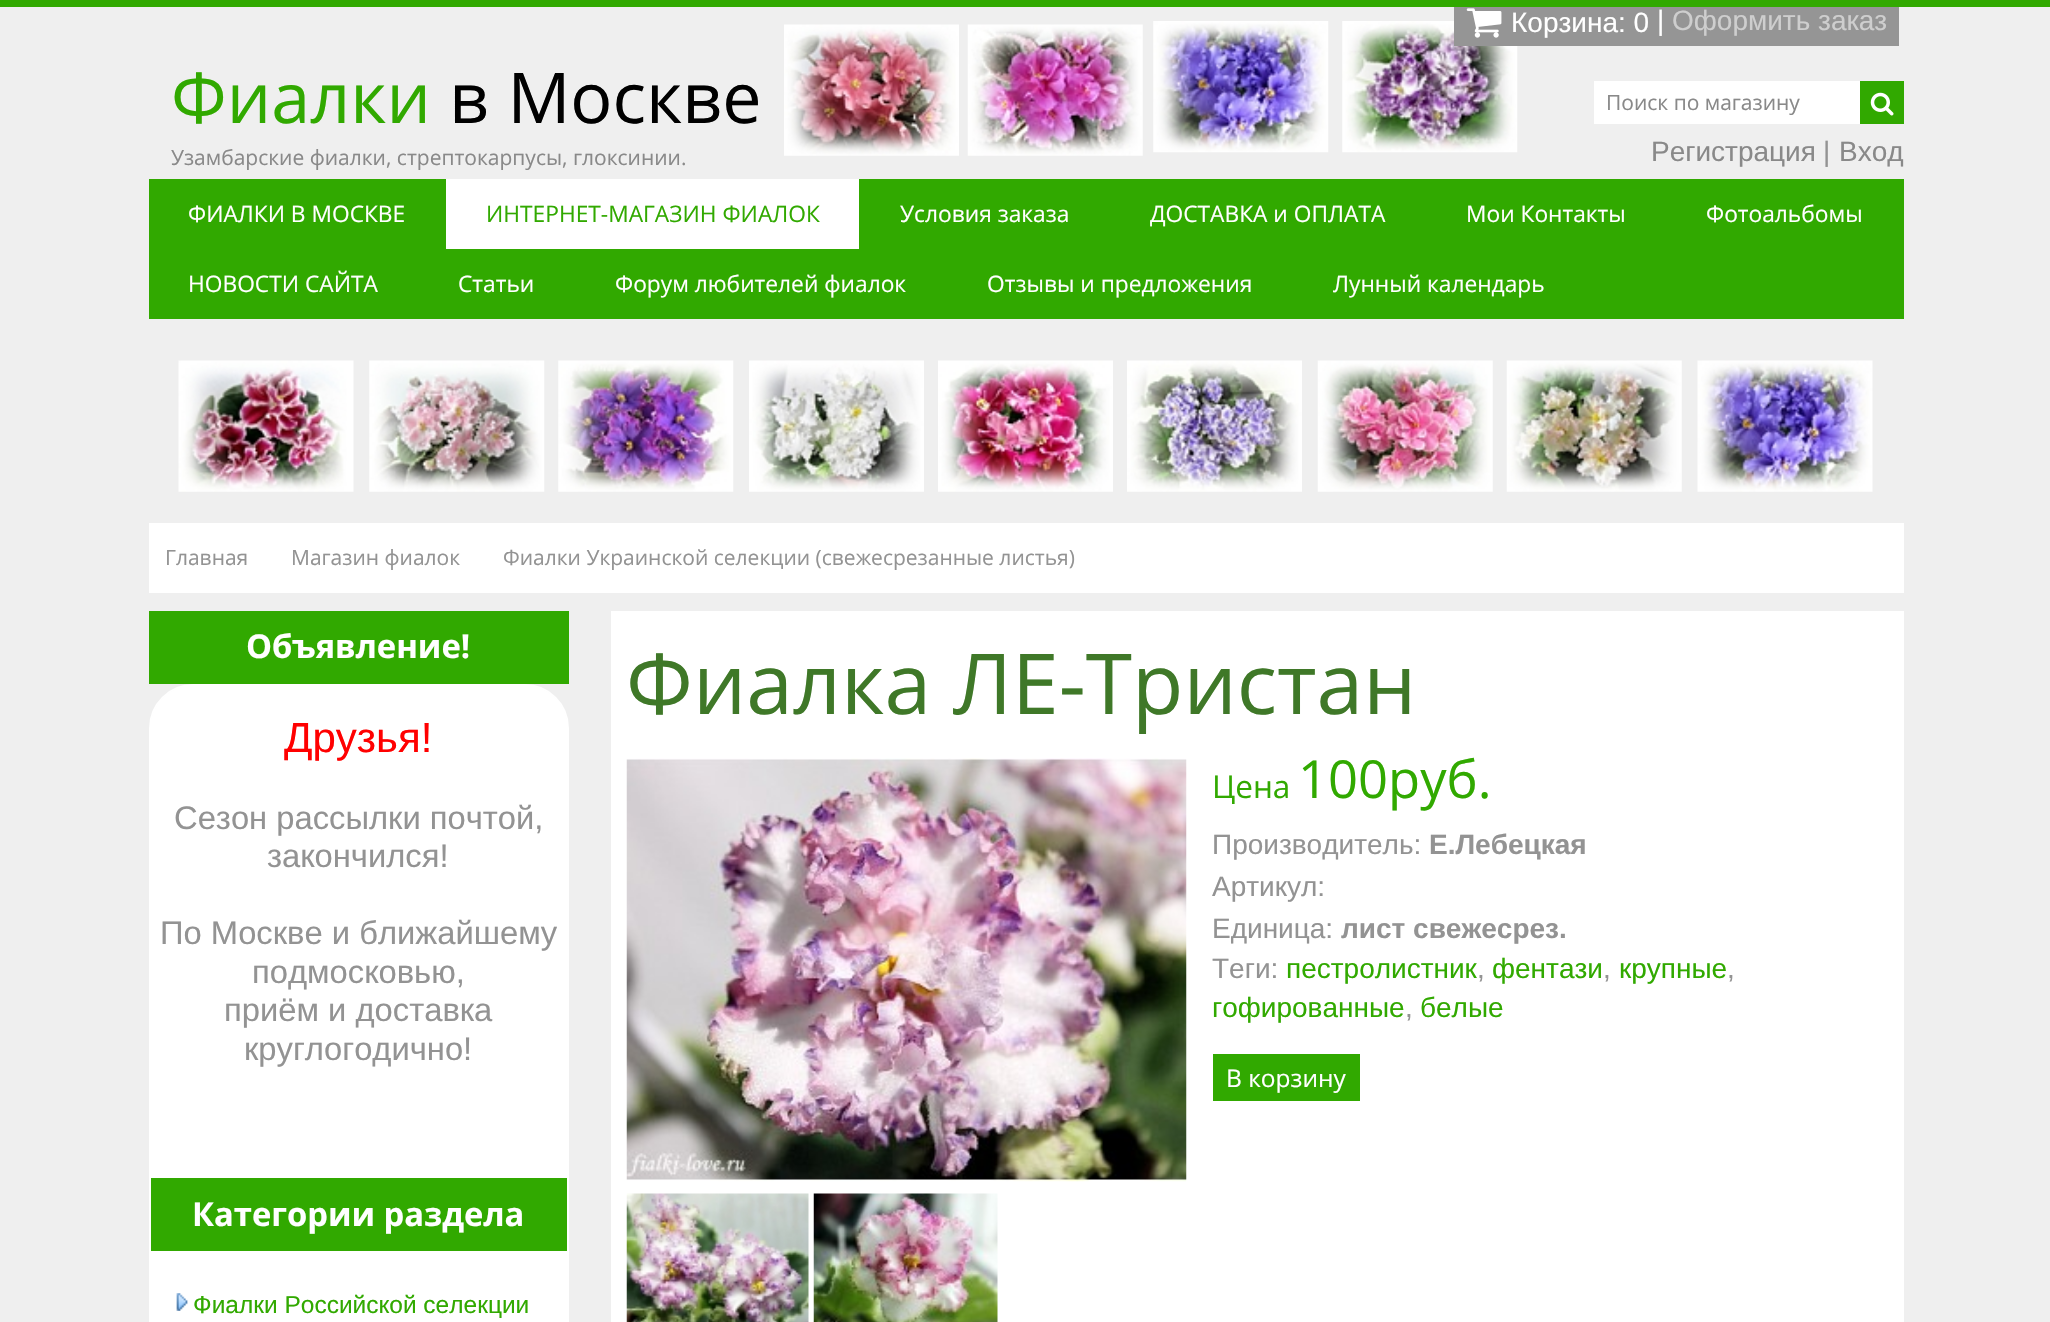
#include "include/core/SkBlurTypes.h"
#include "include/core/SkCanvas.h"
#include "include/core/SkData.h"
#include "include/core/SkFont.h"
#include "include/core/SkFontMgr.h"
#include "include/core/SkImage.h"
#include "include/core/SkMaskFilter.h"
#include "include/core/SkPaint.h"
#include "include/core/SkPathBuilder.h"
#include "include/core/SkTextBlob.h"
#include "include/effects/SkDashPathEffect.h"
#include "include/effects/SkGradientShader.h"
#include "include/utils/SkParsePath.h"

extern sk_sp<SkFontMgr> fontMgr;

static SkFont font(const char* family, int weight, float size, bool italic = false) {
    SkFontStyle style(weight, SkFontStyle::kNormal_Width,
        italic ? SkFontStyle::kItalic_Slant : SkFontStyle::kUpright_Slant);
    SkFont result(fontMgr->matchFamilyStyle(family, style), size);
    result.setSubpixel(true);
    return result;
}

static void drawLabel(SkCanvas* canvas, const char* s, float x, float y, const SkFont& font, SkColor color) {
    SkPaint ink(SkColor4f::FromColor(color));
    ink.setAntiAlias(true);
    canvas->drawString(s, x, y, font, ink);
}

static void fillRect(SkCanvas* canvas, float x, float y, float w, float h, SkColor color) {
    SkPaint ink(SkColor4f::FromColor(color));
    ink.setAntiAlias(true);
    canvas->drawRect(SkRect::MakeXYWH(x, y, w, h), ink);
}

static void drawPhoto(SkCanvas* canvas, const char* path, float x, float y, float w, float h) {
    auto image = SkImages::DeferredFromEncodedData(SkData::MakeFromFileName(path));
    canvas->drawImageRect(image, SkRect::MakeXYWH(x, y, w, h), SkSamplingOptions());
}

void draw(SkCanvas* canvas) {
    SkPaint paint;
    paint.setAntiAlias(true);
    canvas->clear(0xFFEFEFEF);
    fillRect(canvas, 0, 0, 2050, 7, 0xFF31A900);
    SkFont font1 = font("Open Sans", 400, 70);
    drawLabel(canvas, "Фиалки", 171, 123, font1, 0xFF31A900);
    drawLabel(canvas, "в Москве", 449, 123, font1, 0xFF000000);
    SkFont font2 = font("Open Sans", 400, 21);
    drawLabel(canvas, "Узамбарские фиалки, стрептокарпусы, глоксинии.", 171, 165, font2, 0xFF898989);
    drawPhoto(canvas, "assets/img1.png", 784, 24, 175, 132);
    drawPhoto(canvas, "assets/img2.png", 967, 24, 176, 132);
    drawPhoto(canvas, "assets/img3.png", 1153, 21, 176, 132);
    drawPhoto(canvas, "assets/img4.png", 1342, 21, 176, 132);
    fillRect(canvas, 1454, 7, 445, 39, 0xFF959595);
    drawPhoto(canvas, "assets/img5.png", 1466, 8, 36, 30);
    SkFont font3 = font("Liberation Sans", 400, 28);
    drawLabel(canvas, "Корзина: 0", 1511, 32, font3, 0xFFFFFFFF);
    drawLabel(canvas, "|", 1657, 30, font3, 0xFFFFFFFF);
    drawLabel(canvas, "Оформить заказ", 1672, 30, font3, 0xFFCECECE);
    fillRect(canvas, 1594, 81, 266, 43, 0xFFFFFFFF);
    drawLabel(canvas, "Поиск по магазину", 1606, 110, font2, 0xFF898989);
    fillRect(canvas, 1860, 81, 44, 43, 0xFF31A900);
    drawPhoto(canvas, "assets/img6.png", 1870, 92, 24, 24);
    drawLabel(canvas, "Регистрация", 1651, 161, font3, 0xFF898989);
    drawLabel(canvas, "|", 1823, 161, font3, 0xFF939393);
    drawLabel(canvas, "Вход", 1839, 161, font3, 0xFF898989);
    fillRect(canvas, 149, 179, 1755, 140, 0xFF31A900);
    SkFont font4 = font("Open Sans", 400, 22.75f);
    drawLabel(canvas, "ФИАЛКИ В МОСКВЕ", 188, 222, font4, 0xFFFFFFFF);
    fillRect(canvas, 446, 179, 413, 70, 0xFFFFFFFF);
    drawLabel(canvas, "ИНТЕРНЕТ-МАГАЗИН ФИАЛОК", 486, 222, font4, 0xFF31A900);
    drawLabel(canvas, "Условия заказа", 900, 222, font4, 0xFFFFFFFF);
    drawLabel(canvas, "ДОСТАВКА и ОПЛАТА", 1150, 222, font4, 0xFFFFFFFF);
    drawLabel(canvas, "Мои Контакты", 1466, 222, font4, 0xFFFFFFFF);
    drawLabel(canvas, "Фотоальбомы", 1706, 222, font4, 0xFFFFFFFF);
    drawLabel(canvas, "НОВОСТИ САЙТА", 188, 292, font4, 0xFFFFFFFF);
    drawLabel(canvas, "Статьи", 458, 292, font4, 0xFFFFFFFF);
    drawLabel(canvas, "Форум любителей фиалок", 615, 292, font4, 0xFFFFFFFF);
    drawLabel(canvas, "Отзывы и предложения", 987, 292, font4, 0xFFFFFFFF);
    drawLabel(canvas, "Лунный календарь", 1333, 292, font4, 0xFFFFFFFF);
    drawPhoto(canvas, "assets/img7.png", 178, 360, 176, 132);
    drawPhoto(canvas, "assets/img8.png", 369, 360, 176, 132);
    drawPhoto(canvas, "assets/img9.png", 558, 360, 176, 132);
    drawPhoto(canvas, "assets/img10.png", 749, 360, 175, 132);
    drawPhoto(canvas, "assets/img11.png", 938, 360, 175, 132);
    drawPhoto(canvas, "assets/img12.png", 1127, 360, 175, 132);
    drawPhoto(canvas, "assets/img13.png", 1317, 360, 176, 132);
    drawPhoto(canvas, "assets/img14.png", 1506, 360, 176, 132);
    drawPhoto(canvas, "assets/img15.png", 1697, 360, 176, 132);
    fillRect(canvas, 149, 523, 1755, 70, 0xFFFFFFFF);
    drawLabel(canvas, "Главная", 165, 565, font2, 0xFF939393);
    drawLabel(canvas, "Магазин фиалок", 291, 565, font2, 0xFF939393);
    drawLabel(canvas, "Фиалки Украинской селекции (свежесрезанные листья)", 503, 565, font2, 0xFF939393);
    fillRect(canvas, 149, 611, 420, 73, 0xFF31A900);
    SkFont font5 = font("Open Sans", 700, 32.75f);
    drawLabel(canvas, "Объявление!", 246, 658, font5, 0xFFFFFFFF);
    paint.setColor(0xFFFFFFFF);
    canvas->drawRoundRect(SkRect::MakeXYWH(150, 685, 418, 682), 43, 43, paint);
    paint.setStroke(true);
    paint.setStrokeWidth(2);
    canvas->drawRoundRect(SkRect::MakeXYWH(150, 685, 418, 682), 43, 43, paint);
    SkFont font6 = font("Liberation Sans", 400, 42);
    drawLabel(canvas, "Друзья!", 284, 752, font6, 0xFFFF0000);
    SkFont font7 = font("Liberation Sans", 400, 32.75f);
    drawLabel(canvas, "Сезон рассылки почтой,", 174, 829, font7, 0xFF939393);
    drawLabel(canvas, "закончился!", 267, 867, font7, 0xFF939393);
    drawLabel(canvas, "По Москве и ближайшему", 160, 944, font7, 0xFF939393);
    drawLabel(canvas, "подмосковью,", 252, 983, font7, 0xFF939393);
    drawLabel(canvas, "приём и доставка", 224, 1021, font7, 0xFF939393);
    drawLabel(canvas, "круглогодично!", 244, 1060, font7, 0xFF939393);
    fillRect(canvas, 151, 1178, 416, 73, 0xFF31A900);
    drawLabel(canvas, "Категории раздела", 192, 1226, font5, 0xFFFFFFFF);
    drawPhoto(canvas, "assets/img16.png", 176, 1293, 12, 18);
    SkFont font8 = font("Liberation Sans", 400, 24.5f);
    drawLabel(canvas, "Фиалки Российской селекции", 193, 1313, font8, 0xFF31A900);
    fillRect(canvas, 611, 611, 1293, 711, 0xFFFFFFFF);
    SkFont font9 = font("Open Sans", 400, 84);
    drawLabel(canvas, "Фиалка ЛЕ-Тристан", 626, 714, font9, 0xFF3F7828);
    drawPhoto(canvas, "assets/img17.png", 626, 758, 561, 424);
    drawPhoto(canvas, "assets/img18.png", 626, 1193, 183, 129);
    drawPhoto(canvas, "assets/img19.png", 813, 1193, 185, 129);
    SkFont font10 = font("Open Sans", 400, 31.5f);
    drawLabel(canvas, "Цена", 1212, 798, font10, 0xFF31A900);
    SkFont font11 = font("Open Sans", 400, 52.5f);
    drawLabel(canvas, "100руб.", 1298, 798, font11, 0xFF31A900);
    drawLabel(canvas, "Производитель:", 1212, 854, font3, 0xFF939393);
    SkFont font12 = font("Liberation Sans", 700, 28);
    drawLabel(canvas, "Е.Лебецкая", 1429, 854, font12, 0xFF939393);
    drawLabel(canvas, "Артикул:", 1212, 896, font3, 0xFF939393);
    drawLabel(canvas, "Единица:", 1212, 938, font3, 0xFF939393);
    drawLabel(canvas, "лист свежесрез.", 1341, 938, font12, 0xFF939393);
    drawLabel(canvas, "Теги:", 1212, 978, font3, 0xFF939393);
    drawLabel(canvas, "пестролистник", 1286, 978, font3, 0xFF31A900);
    drawLabel(canvas, ",", 1477, 978, font3, 0xFF939393);
    drawLabel(canvas, "фентази", 1492, 978, font3, 0xFF31A900);
    drawLabel(canvas, ",", 1603, 978, font3, 0xFF939393);
    drawLabel(canvas, "крупные", 1619, 978, font3, 0xFF31A900);
    drawLabel(canvas, ",", 1727, 978, font3, 0xFF939393);
    drawLabel(canvas, "гофированные", 1212, 1017, font3, 0xFF31A900);
    drawLabel(canvas, ",", 1405, 1017, font3, 0xFF939393);
    drawLabel(canvas, "белые", 1420, 1017, font3, 0xFF31A900);
    fillRect(canvas, 1213, 1054, 147, 47, 0xFF31A900);
    SkFont font13 = font("Open Sans", 400, 24.5f);
    drawLabel(canvas, "В корзину", 1226, 1087, font13, 0xFFFFFFFF);
}
